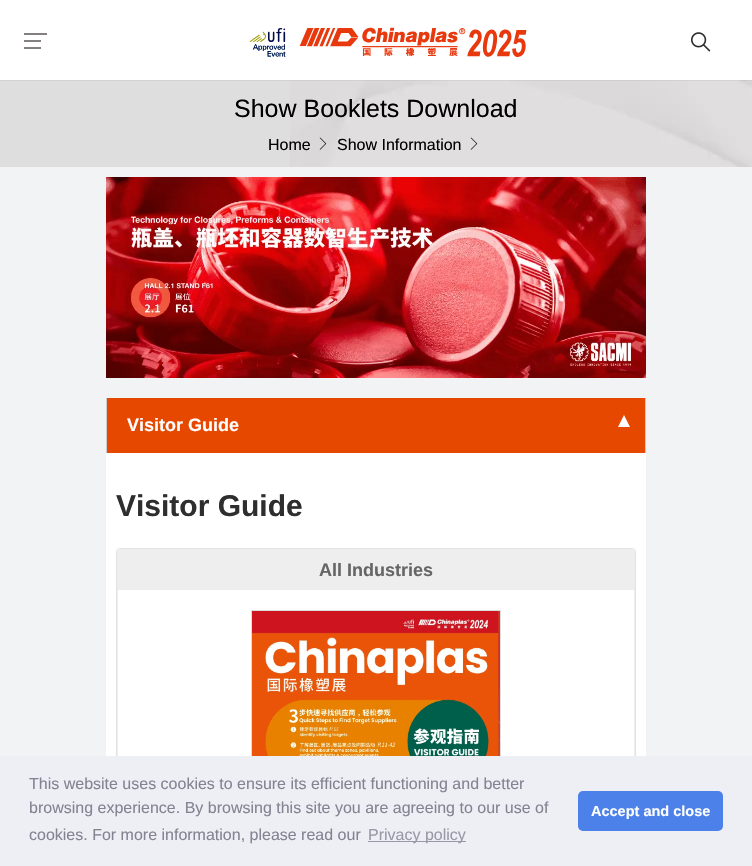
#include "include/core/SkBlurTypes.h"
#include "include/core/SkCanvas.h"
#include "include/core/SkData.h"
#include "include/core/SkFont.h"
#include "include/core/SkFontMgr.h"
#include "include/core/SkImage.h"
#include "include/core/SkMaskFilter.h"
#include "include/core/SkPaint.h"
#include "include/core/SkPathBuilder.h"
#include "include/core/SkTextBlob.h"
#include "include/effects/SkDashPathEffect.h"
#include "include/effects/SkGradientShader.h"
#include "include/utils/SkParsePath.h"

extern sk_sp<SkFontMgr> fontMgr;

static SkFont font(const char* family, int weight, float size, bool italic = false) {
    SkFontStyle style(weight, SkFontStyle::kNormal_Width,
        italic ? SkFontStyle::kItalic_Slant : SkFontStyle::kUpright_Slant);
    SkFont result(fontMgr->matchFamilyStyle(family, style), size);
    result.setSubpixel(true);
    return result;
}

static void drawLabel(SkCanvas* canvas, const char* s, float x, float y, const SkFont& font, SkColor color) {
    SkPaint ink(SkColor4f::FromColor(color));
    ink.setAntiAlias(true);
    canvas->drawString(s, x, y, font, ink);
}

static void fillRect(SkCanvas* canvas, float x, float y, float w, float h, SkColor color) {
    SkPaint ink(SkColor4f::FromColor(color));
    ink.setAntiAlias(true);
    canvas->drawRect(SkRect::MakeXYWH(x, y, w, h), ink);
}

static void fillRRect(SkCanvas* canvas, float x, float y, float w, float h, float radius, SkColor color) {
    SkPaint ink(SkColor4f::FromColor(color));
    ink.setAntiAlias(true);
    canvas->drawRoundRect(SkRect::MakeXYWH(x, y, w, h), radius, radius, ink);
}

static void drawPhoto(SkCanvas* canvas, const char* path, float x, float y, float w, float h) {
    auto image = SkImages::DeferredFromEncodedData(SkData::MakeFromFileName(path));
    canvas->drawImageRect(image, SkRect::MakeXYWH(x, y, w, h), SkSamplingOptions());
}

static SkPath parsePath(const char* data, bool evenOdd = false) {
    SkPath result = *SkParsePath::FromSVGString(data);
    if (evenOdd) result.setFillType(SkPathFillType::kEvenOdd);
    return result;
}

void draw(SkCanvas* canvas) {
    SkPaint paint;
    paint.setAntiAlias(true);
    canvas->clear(0xFFF2F3F5);
    fillRect(canvas, 0, 80, 290, 87, 0xFFDFDEDE);
    drawPhoto(canvas, "assets/img3.png", 290, 80, 462, 87);
    paint.setColor(0x4D000000);
    paint.setMaskFilter(SkMaskFilter::MakeBlur(kNormal_SkBlurStyle, 0.5f));
    canvas->drawRect(SkRect::MakeXYWH(0, 0, 752, 80), paint);
    paint.setMaskFilter(nullptr);
    fillRect(canvas, 0, 0, 752, 80, 0xFFFFFFFF);
    fillRect(canvas, 24, 40, 17, 2, 0xFF848080);
    fillRect(canvas, 24, 33, 23, 2, 0xFF848080);
    fillRect(canvas, 24, 47, 17, 2, 0xFF848080);
    drawPhoto(canvas, "assets/img1.png", 249, 27, 278, 30);
    drawPhoto(canvas, "assets/img2.png", 691, 32, 20, 20);
    SkFont font1 = font("Liberation Sans", 400, 25);
    drawLabel(canvas, "Show Booklets Download", 234, 117, font1, 0xFF000000);
    SkFont font2 = font("Liberation Sans", 400, 16);
    drawLabel(canvas, "Home", 268, 150, font2, 0xFF000000);
    drawPhoto(canvas, "assets/img4.png", 319, 137, 8, 13);
    drawLabel(canvas, "Show Information", 337, 150, font2, 0xFF000000);
    drawPhoto(canvas, "assets/img5.png", 470, 137, 8, 13);
    drawPhoto(canvas, "assets/img6.png", 106, 177, 540, 201);
    fillRect(canvas, 106, 453, 540, 303, 0xFFFFFFFF);
    fillRect(canvas, 107, 398, 538, 55, 0xFFE64800);
    fillRect(canvas, 645, 398, 1, 55, 0xFFCCCCCC);
    fillRect(canvas, 106, 398, 1, 55, 0xFFCCCCCC);
    SkFont font3 = font("Liberation Sans", 700, 18);
    drawLabel(canvas, "Visitor Guide", 127, 431, font3, 0xFFFFFFFF);
    paint.setColor(0xFFFFFFFF);
    canvas->drawPath(parsePath("M630 427H618L624 415Z"), paint);
    SkFont font4 = font("Liberation Sans", 700, 30);
    drawLabel(canvas, "Visitor Guide", 116, 516, font4, 0xFF2E2E2E);
    paint.setStroke(true);
    paint.setStrokeWidth(1);
    paint.setColor(0xFFE4E1E1);
    canvas->drawRoundRect(SkRect::MakeXYWH(116.5f, 548.5f, 519, 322), 3.5f, 3.5f, paint);
    fillRect(canvas, 117, 549, 518, 1, 0xFFEEEEEE);
    fillRect(canvas, 634, 549, 1, 207, 0xFFEEEEEE);
    fillRect(canvas, 117, 549, 1, 207, 0xFFEEEEEE);
    fillRect(canvas, 118, 550, 516, 40, 0xFFEEEEEE);
    drawLabel(canvas, "All Industries", 319, 576, font3, 0xFF666666);
    paint.setColor(0xFFDCDCDC);
    canvas->drawRect(SkRect::MakeXYWH(251.5f, 610.5f, 249, 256), paint);
    drawPhoto(canvas, "assets/img7.png", 252, 611, 248, 145);
    fillRect(canvas, 0, 756, 752, 110, 0xFFEDEFF5);
    drawLabel(canvas, "This website uses cookies to ensure its efficient functioning and better", 29, 789, font2, 0xFF838391);
    drawLabel(canvas, "browsing experience. By browsing this site you are agreeing to our use of", 29, 813, font2, 0xFF838391);
    drawLabel(canvas, "cookies. For more information, please read our", 29, 840, font2, 0xFF838391);
    fillRect(canvas, 368, 841, 98, 1, 0xFF9899A5);
    drawLabel(canvas, "Privacy policy", 368, 840, font2, 0xFF9899A5);
    fillRRect(canvas, 578, 791, 145, 40, 5, 0xFF4B81E8);
    SkFont font5 = font("Liberation Sans", 700, 14.5f);
    drawLabel(canvas, "Accept and close", 591, 816, font5, 0xFFFFFFFF);
}
